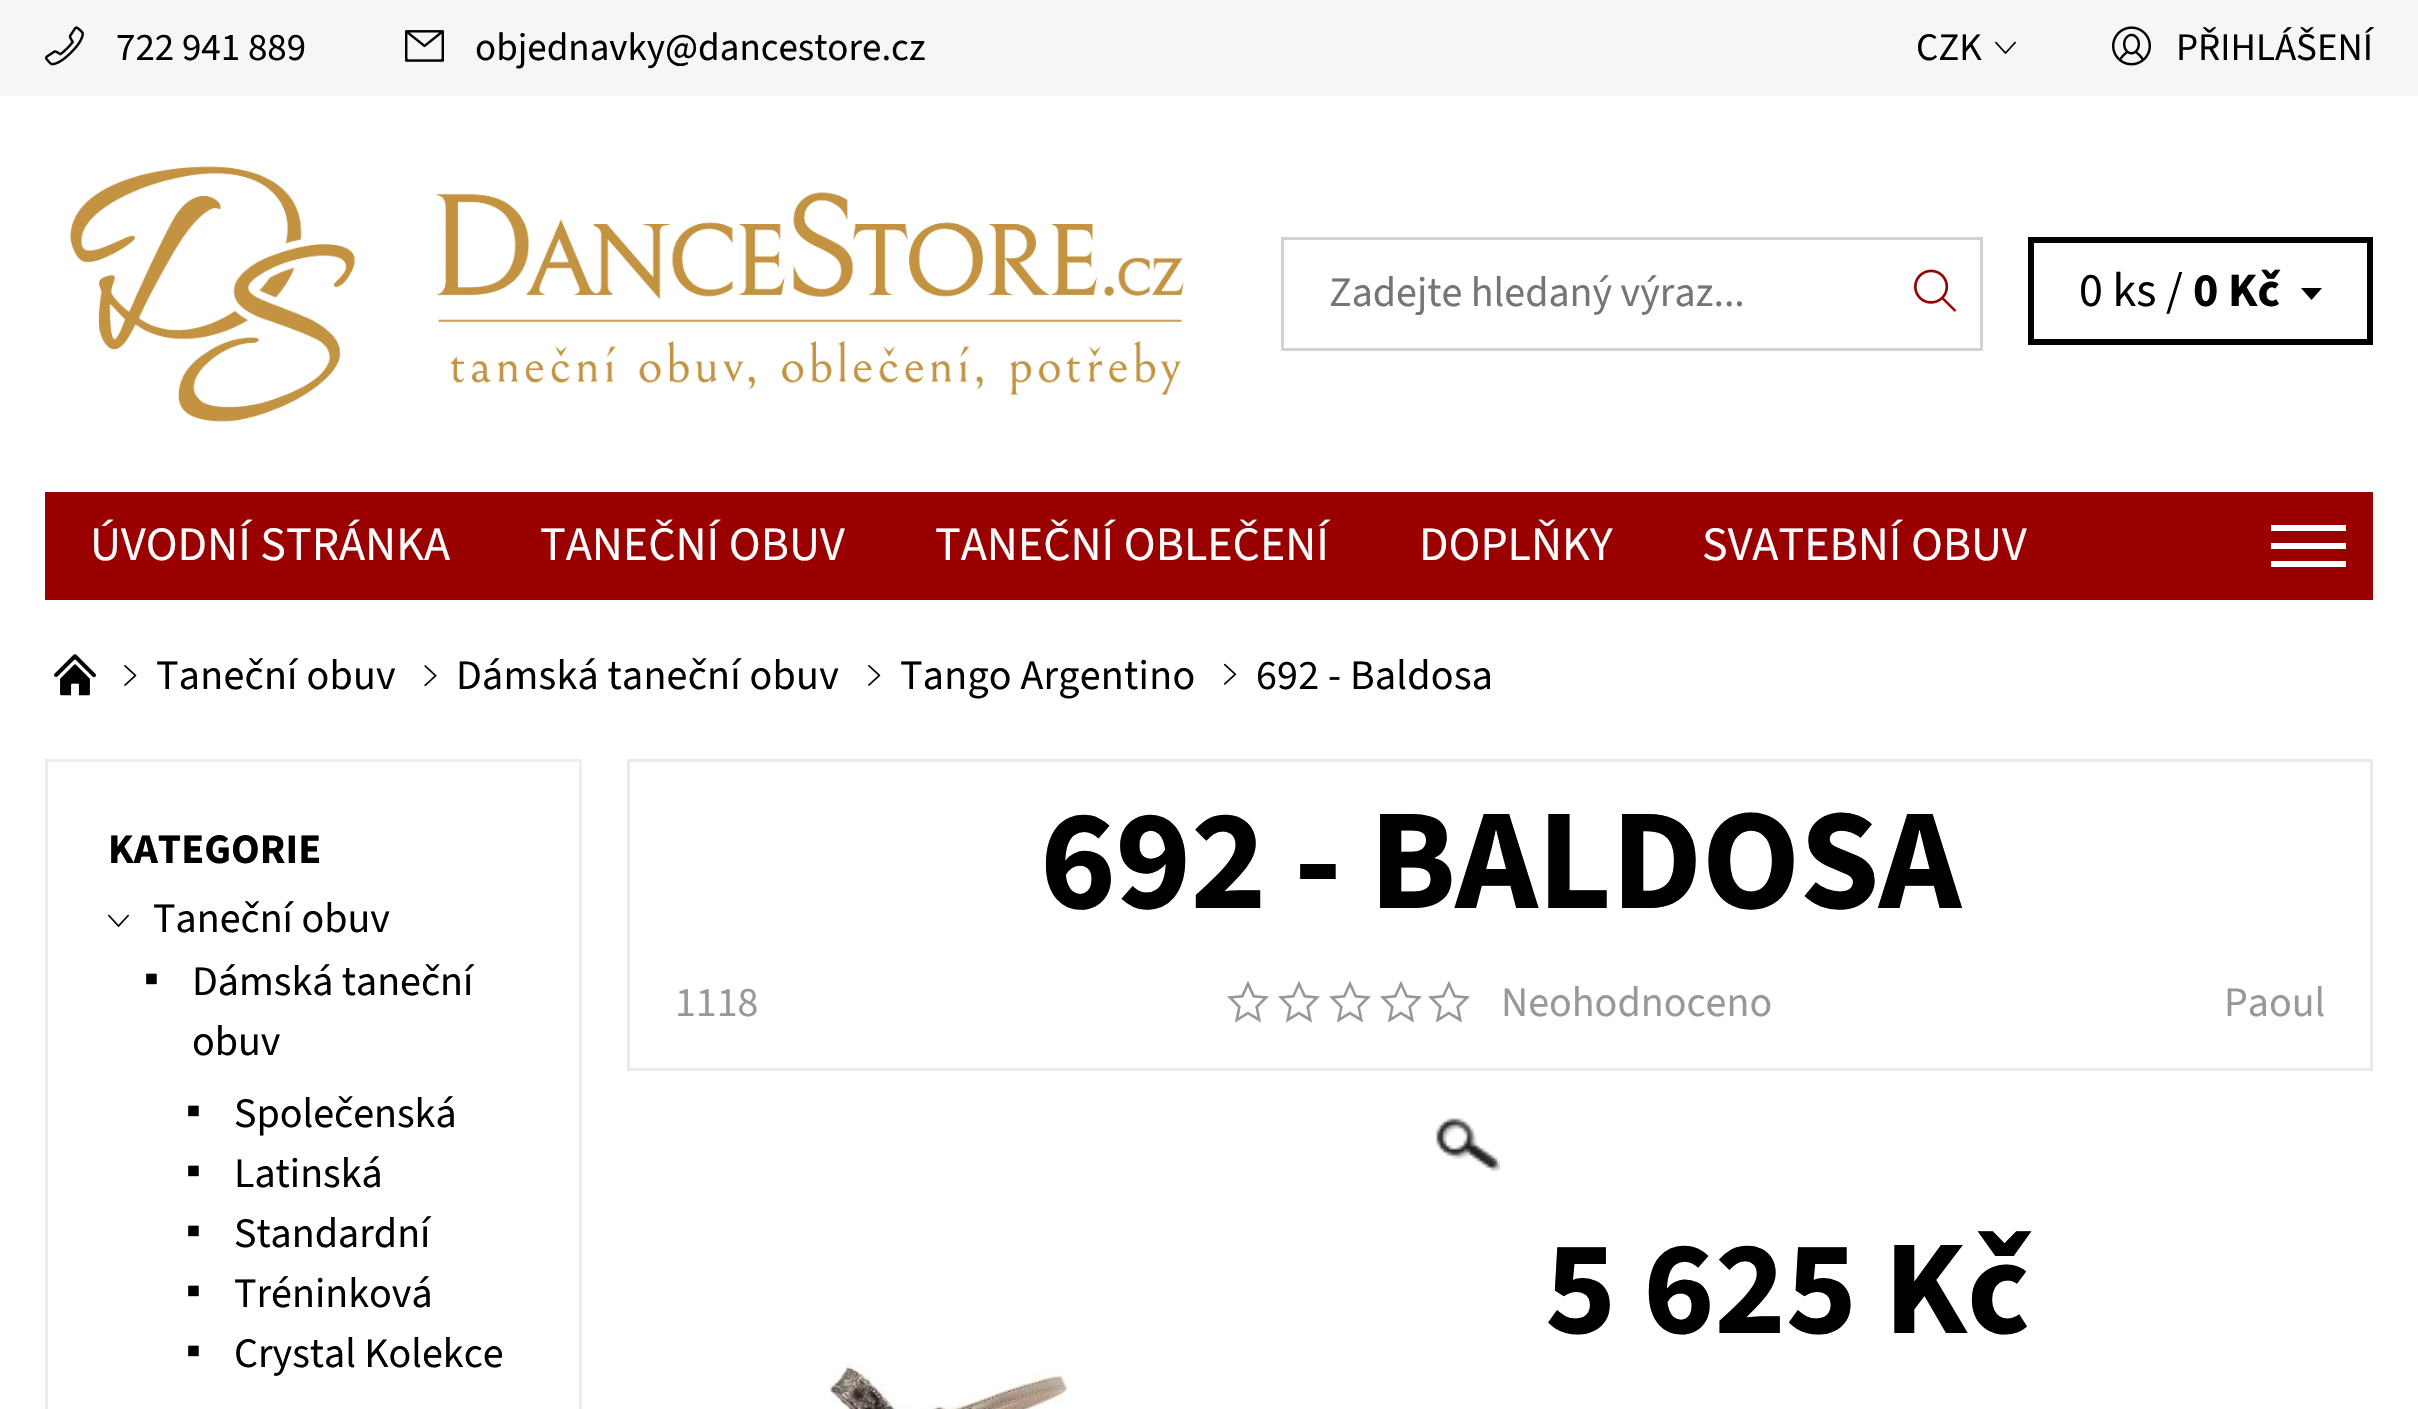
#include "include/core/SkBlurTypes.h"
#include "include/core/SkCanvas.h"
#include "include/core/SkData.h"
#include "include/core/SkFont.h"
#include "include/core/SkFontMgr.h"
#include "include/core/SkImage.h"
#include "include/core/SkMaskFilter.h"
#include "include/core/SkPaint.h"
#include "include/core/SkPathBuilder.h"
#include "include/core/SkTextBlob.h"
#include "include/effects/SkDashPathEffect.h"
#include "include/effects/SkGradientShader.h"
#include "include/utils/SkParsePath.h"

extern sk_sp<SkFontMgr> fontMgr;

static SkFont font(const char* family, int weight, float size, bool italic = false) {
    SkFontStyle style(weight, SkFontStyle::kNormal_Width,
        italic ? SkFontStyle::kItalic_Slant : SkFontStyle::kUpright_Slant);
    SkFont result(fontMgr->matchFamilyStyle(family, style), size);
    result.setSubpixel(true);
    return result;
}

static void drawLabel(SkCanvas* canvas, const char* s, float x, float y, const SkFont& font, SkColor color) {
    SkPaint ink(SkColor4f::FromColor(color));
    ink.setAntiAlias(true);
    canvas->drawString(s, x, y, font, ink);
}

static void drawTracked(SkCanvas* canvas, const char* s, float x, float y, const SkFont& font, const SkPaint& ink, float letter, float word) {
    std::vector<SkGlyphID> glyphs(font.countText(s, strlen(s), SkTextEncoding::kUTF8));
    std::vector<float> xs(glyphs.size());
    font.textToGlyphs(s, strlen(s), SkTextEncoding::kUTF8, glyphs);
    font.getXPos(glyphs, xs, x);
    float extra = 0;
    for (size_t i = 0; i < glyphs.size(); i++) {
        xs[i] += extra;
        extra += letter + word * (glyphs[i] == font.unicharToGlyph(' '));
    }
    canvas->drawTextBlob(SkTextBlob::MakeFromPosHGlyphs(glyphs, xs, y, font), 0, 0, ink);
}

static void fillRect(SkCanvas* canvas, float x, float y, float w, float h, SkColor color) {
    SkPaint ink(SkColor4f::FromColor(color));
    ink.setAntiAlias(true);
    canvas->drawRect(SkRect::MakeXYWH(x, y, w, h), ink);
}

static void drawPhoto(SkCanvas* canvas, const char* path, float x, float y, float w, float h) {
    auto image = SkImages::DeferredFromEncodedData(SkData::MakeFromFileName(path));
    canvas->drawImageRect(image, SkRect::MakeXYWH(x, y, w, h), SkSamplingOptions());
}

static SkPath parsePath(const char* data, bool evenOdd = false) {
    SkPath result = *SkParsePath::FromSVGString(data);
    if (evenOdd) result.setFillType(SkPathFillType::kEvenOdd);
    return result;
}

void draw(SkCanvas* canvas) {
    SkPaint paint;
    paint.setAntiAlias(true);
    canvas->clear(0xFFFFFFFF);
    fillRect(canvas, 0, 0, 2418, 96, 0xFFF6F6F6);
    drawPhoto(canvas, "assets/img1.png", 45, 26, 39, 40);
    SkFont font1 = font("Source Sans 3", 400, 39);
    drawLabel(canvas, "722 941 889", 116, 60, font1, 0xFF000000);
    drawPhoto(canvas, "assets/img2.png", 405, 30, 39, 32);
    drawLabel(canvas, "objednavky@dancestore.cz", 475, 60, font1, 0xFF000000);
    drawLabel(canvas, "CZK", 1916, 60, font1, 0xFF000000);
    drawPhoto(canvas, "assets/img3.png", 1995, 41, 21, 13);
    drawPhoto(canvas, "assets/img4.png", 2112, 26, 39, 40);
    drawLabel(canvas, "PŘIHLÁŠENÍ", 2176, 60, font1, 0xFF000000);
    drawPhoto(canvas, "assets/img5.png", 70, 166, 1114, 256);
    fillRect(canvas, 1281, 237, 702, 3, 0xFFD2D2D2);
    fillRect(canvas, 1281, 348, 609, 3, 0xFFD2D2D2);
    fillRect(canvas, 1281, 237, 3, 114, 0xFFD2D2D2);
    SkFont font2 = font("Source Sans 3", 400, 42);
    drawLabel(canvas, "Zadejte hledaný výraz...", 1329, 306, font2, 0xFF757575);
    fillRect(canvas, 1980, 237, 3, 114, 0xFFD2D2D2);
    fillRect(canvas, 1890, 348, 93, 3, 0xFFD2D2D2);
    drawPhoto(canvas, "assets/img6.png", 1914, 269, 42, 43);
    paint.setStroke(true);
    paint.setStrokeWidth(6);
    paint.setColor(0xFF000000);
    canvas->drawRect(SkRect::MakeXYWH(2031, 240, 339, 102), paint);
    SkFont font3 = font("Source Sans 3", 400, 48);
    drawLabel(canvas, "0 ks /", 2079, 306, font3, 0xFF000000);
    SkFont font4 = font("Source Sans 3", 700, 48);
    drawLabel(canvas, "0 Kč", 2193, 306, font4, 0xFF000000);
    paint.setStroke(false);
    canvas->drawPath(parsePath("M2311.5 288H2322L2311.5 300L2301 288Z"), paint);
    fillRect(canvas, 45, 492, 2328, 108, 0xFF9A0000);
    drawLabel(canvas, "ÚVODNÍ STRÁNKA", 90, 560, font3, 0xFFFFFFFF);
    drawLabel(canvas, "TANEČNÍ OBUV", 540, 560, font3, 0xFFFFFFFF);
    drawLabel(canvas, "TANEČNÍ OBLEČENÍ", 935, 560, font3, 0xFFFFFFFF);
    drawLabel(canvas, "DOPLŇKY", 1419, 560, font3, 0xFFFFFFFF);
    drawLabel(canvas, "SVATEBNÍ OBUV", 1702, 560, font3, 0xFFFFFFFF);
    fillRect(canvas, 2271, 525, 75, 6, 0xFFFFFFFF);
    fillRect(canvas, 2271, 543, 75, 6, 0xFFFFFFFF);
    fillRect(canvas, 2271, 561, 75, 6, 0xFFFFFFFF);
    drawPhoto(canvas, "assets/img7.png", 54, 654, 42, 42);
    drawPhoto(canvas, "assets/img8.png", 124, 665, 13, 21);
    drawTracked(canvas, "Taneční obuv", 156, 689, font2, paint, 0.25f, 0);
    drawPhoto(canvas, "assets/img9.png", 424, 665, 13, 22);
    drawTracked(canvas, "Dámská taneční obuv", 456, 689, font2, paint, 0.25f, 0);
    drawPhoto(canvas, "assets/img10.png", 868, 665, 13, 21);
    drawTracked(canvas, "Tango Argentino", 900, 689, font2, paint, 0.25f, 0);
    drawPhoto(canvas, "assets/img11.png", 1224, 663, 13, 22);
    drawTracked(canvas, "692 - Baldosa", 1256, 689, font2, paint, 0.25f, 0);
    paint.setStroke(true);
    paint.setStrokeWidth(3);
    paint.setColor(0xFFEDEDED);
    canvas->drawRect(SkRect::MakeXYWH(46.5f, 760.5f, 534, 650), paint);
    SkFont font5 = font("Source Sans 3", 700, 42);
    drawLabel(canvas, "KATEGORIE", 108, 863, font5, 0xFF000000);
    drawPhoto(canvas, "assets/img12.png", 108, 914, 21, 13);
    drawLabel(canvas, "Taneční obuv", 153, 932, font2, 0xFF000000);
    SkFont font6 = font("Liberation Serif", 400, 42);
    drawLabel(canvas, "▪", 144, 992, font6, 0xFF000000);
    drawLabel(canvas, "Dámská taneční", 192, 995, font2, 0xFF000000);
    drawLabel(canvas, "obuv", 192, 1055, font2, 0xFF000000);
    drawLabel(canvas, "▪", 186, 1124, font6, 0xFF000000);
    drawLabel(canvas, "Společenská", 234, 1127, font2, 0xFF000000);
    drawLabel(canvas, "▪", 186, 1184, font6, 0xFF000000);
    drawLabel(canvas, "Latinská", 234, 1187, font2, 0xFF000000);
    drawLabel(canvas, "▪", 186, 1244, font6, 0xFF000000);
    drawLabel(canvas, "Standardní", 234, 1247, font2, 0xFF000000);
    drawLabel(canvas, "▪", 186, 1304, font6, 0xFF000000);
    drawLabel(canvas, "Tréninková", 234, 1307, font2, 0xFF000000);
    drawLabel(canvas, "▪", 186, 1364, font6, 0xFF000000);
    drawLabel(canvas, "Crystal Kolekce", 234, 1367, font2, 0xFF000000);
    paint.setColor(0xFFE9E9E9);
    canvas->drawRect(SkRect::MakeXYWH(628.5f, 760.5f, 1743, 309), paint);
    SkFont font7 = font("Source Sans 3", 700, 144);
    paint.setStroke(false);
    paint.setColor(0xFF000000);
    drawTracked(canvas, "692 - BALDOSA", 1040, 908, font7, paint, -0.75f, 0);
    drawLabel(canvas, "1118", 675, 1016, font2, 0xFF989898);
    drawPhoto(canvas, "assets/img13.png", 1227, 981, 42, 42);
    drawPhoto(canvas, "assets/img13.png", 1278, 981, 42, 42);
    drawPhoto(canvas, "assets/img13.png", 1329, 981, 42, 42);
    drawPhoto(canvas, "assets/img13.png", 1380, 981, 42, 42);
    drawPhoto(canvas, "assets/img13.png", 1428, 981, 42, 42);
    drawLabel(canvas, "Neohodnoceno", 1501, 1016, font2, 0xFF989898);
    drawLabel(canvas, "Paoul", 2224, 1016, font2, 0xFF989898);
    drawPhoto(canvas, "assets/img14.png", 1436, 1118, 64, 55);
    drawPhoto(canvas, "assets/img15.png", 828, 1362, 241, 47);
    SkFont font8 = font("Source Sans 3", 700, 135);
    drawLabel(canvas, "5 625 Kč", 1545, 1333, font8, 0xFF000000);
}
